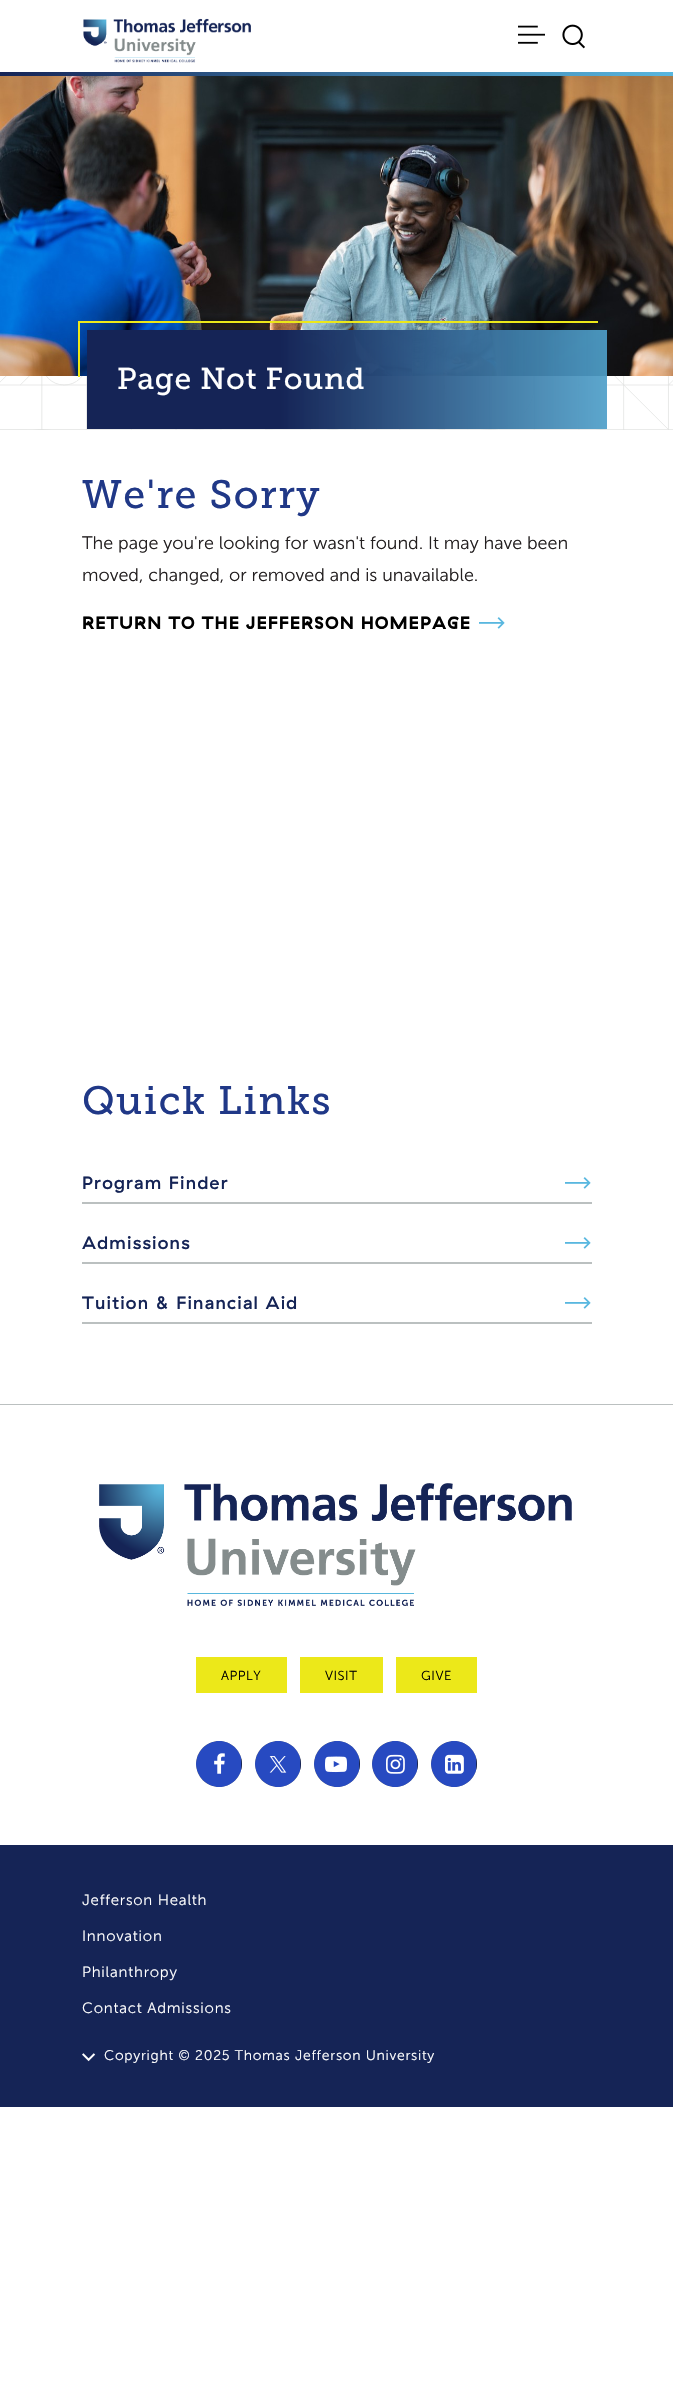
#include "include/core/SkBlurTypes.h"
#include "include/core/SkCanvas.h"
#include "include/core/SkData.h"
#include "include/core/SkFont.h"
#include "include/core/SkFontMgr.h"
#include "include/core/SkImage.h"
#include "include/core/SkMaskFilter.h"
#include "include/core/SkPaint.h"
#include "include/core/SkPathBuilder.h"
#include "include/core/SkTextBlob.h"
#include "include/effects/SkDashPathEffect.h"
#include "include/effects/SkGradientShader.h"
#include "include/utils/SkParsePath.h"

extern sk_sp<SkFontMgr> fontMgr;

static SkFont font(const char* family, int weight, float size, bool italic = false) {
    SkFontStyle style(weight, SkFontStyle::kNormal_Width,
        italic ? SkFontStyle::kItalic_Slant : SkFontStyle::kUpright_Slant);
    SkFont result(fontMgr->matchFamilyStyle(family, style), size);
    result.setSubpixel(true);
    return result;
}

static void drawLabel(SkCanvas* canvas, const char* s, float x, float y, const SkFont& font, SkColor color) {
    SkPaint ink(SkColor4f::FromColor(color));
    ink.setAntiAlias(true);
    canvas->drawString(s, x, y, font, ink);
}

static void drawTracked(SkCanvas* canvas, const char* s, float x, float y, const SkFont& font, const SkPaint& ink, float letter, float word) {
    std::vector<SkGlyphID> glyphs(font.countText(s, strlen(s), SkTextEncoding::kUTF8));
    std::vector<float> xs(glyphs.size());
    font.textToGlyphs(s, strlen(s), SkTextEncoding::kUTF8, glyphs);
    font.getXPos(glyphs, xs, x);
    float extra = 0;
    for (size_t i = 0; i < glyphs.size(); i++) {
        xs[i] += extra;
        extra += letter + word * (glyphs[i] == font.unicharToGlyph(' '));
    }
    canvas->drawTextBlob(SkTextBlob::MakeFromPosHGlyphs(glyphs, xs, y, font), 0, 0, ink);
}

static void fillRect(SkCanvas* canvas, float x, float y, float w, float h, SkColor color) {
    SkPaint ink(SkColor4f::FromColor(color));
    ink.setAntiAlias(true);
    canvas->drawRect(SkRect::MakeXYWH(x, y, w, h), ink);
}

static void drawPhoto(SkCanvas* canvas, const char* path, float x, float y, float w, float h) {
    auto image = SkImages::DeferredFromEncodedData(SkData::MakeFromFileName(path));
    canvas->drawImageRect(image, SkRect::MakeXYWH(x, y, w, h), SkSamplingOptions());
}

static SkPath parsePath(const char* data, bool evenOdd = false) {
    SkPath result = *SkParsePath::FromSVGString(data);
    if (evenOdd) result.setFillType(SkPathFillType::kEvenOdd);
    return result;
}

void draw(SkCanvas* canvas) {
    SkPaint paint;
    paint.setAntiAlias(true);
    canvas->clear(0xFFFFFFFF);
    drawPhoto(canvas, "assets/img1.png", 0, 72, 673, 4);
    drawPhoto(canvas, "assets/img2.png", 83, 18, 168, 45);
    drawPhoto(canvas, "assets/img3.png", 518, 25, 27, 19);
    drawPhoto(canvas, "assets/img4.png", 562, 24, 23, 25);
    drawPhoto(canvas, "assets/img5.png", 0, 376, 673, 54);
    drawPhoto(canvas, "assets/img6.png", 0, 76, 673, 300);
    {
        const SkColor colors[] = {0xE659B7DF, 0xFF152456};
        const float stops[] = {0, 0.67f};
        const SkPoint ends[] = {{672, 379}, {87, 380}};
        paint.setShader(SkGradientShader::MakeLinear(ends, colors, stops, 2, SkTileMode::kClamp));
        paint.setAlpha(255);
    }
    canvas->drawRect(SkRect::MakeXYWH(87, 330, 520, 99), paint);
    fillRect(canvas, 78, 321, 520, 2, 0xFFECE819);
    fillRect(canvas, 78, 321, 2, 56, 0xFFECE819);
    SkFont font1 = font("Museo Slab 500", 400, 30);
    paint.setShader(nullptr);
    paint.setColor(0xFFFFFFFF);
    drawTracked(canvas, "Page Not Found", 117, 389, font1, paint, 0.8f, 0);
    SkFont font2 = font("Museo Slab 500", 400, 39.5f);
    paint.setColor(0xFF203887);
    drawTracked(canvas, "We're Sorry", 82, 508, font2, paint, 1.5f, 0);
    SkFont font3 = font("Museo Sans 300", 300, 18);
    drawLabel(canvas, "The page you're looking for wasn't found. It may have been", 82, 549, font3, 0xFF231F20);
    drawLabel(canvas, "moved, changed, or removed and is unavailable.", 82, 581, font3, 0xFF231F20);
    SkFont font4 = font("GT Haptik", 700, 18);
    paint.setColor(0xFF000000);
    drawTracked(canvas, "RETURN TO THE JEFFERSON HOMEPAGE", 82, 629, font4, paint, 0.9f, 0);
    drawPhoto(canvas, "assets/img7.png", 479, 617, 26, 12);
    paint.setColor(0xFF203887);
    drawTracked(canvas, "Quick Links", 82, 1114, font2, paint, 1.5f, 0);
    SkFont font5 = font("GT Haptik", 500, 18);
    paint.setColor(0xFF152456);
    drawTracked(canvas, "Program Finder", 82, 1189, font5, paint, 1.2f, 0);
    drawPhoto(canvas, "assets/img7.png", 565, 1177, 26, 12);
    {
        const SkColor colors[] = {0xFFBBC0C0, 0xFF59B7DF, 0xFFECE819};
        const float stops[] = {0.5f, 0.55f, 0.8f};
        const SkPoint ends[] = {{82, 1203}, {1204, 1203}};
        paint.setShader(SkGradientShader::MakeLinear(ends, colors, stops, 3, SkTileMode::kClamp));
        paint.setAlpha(255);
    }
    canvas->drawRect(SkRect::MakeXYWH(82, 1202, 510, 2), paint);
    paint.setShader(nullptr);
    paint.setColor(0xFF152456);
    drawTracked(canvas, "Admissions", 82, 1249, font5, paint, 1.2f, 0);
    drawPhoto(canvas, "assets/img7.png", 565, 1237, 26, 12);
    {
        const SkColor colors[] = {0xFFBBC0C0, 0xFF59B7DF, 0xFFECE819};
        const float stops[] = {0.5f, 0.55f, 0.8f};
        const SkPoint ends[] = {{82, 1263}, {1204, 1263}};
        paint.setShader(SkGradientShader::MakeLinear(ends, colors, stops, 3, SkTileMode::kClamp));
        paint.setAlpha(255);
    }
    canvas->drawRect(SkRect::MakeXYWH(82, 1262, 510, 2), paint);
    paint.setShader(nullptr);
    paint.setColor(0xFF152456);
    drawTracked(canvas, "Tuition & Financial Aid", 82, 1309, font5, paint, 1.2f, 0);
    drawPhoto(canvas, "assets/img7.png", 565, 1297, 26, 12);
    {
        const SkColor colors[] = {0xFFBBC0C0, 0xFF59B7DF, 0xFFECE819};
        const float stops[] = {0.5f, 0.55f, 0.8f};
        const SkPoint ends[] = {{82, 1323}, {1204, 1323}};
        paint.setShader(SkGradientShader::MakeLinear(ends, colors, stops, 3, SkTileMode::kClamp));
        paint.setAlpha(255);
    }
    canvas->drawRect(SkRect::MakeXYWH(82, 1322, 510, 2), paint);
    fillRect(canvas, 0, 1404, 673, 1, 0xFFBBC0C0);
    drawPhoto(canvas, "assets/img8.png", 99, 1483, 473, 123);
    {
        const SkColor colors[] = {0xFFC0BF11, 0xFFECE819};
        const float stops[] = {0, 0.4f};
        const SkPoint ends[] = {{105, 1675}, {287, 1675}};
        paint.setShader(SkGradientShader::MakeLinear(ends, colors, stops, 2, SkTileMode::kClamp));
        paint.setAlpha(255);
    }
    canvas->drawRect(SkRect::MakeXYWH(196, 1657, 91, 36), paint);
    SkFont font6 = font("Museo Sans 300", 300, 13);
    paint.setShader(nullptr);
    paint.setColor(0xFF000000);
    drawTracked(canvas, "APPLY", 221, 1680, font6, paint, 0.5f, 0);
    {
        const SkColor colors[] = {0xFFC0BF11, 0xFFECE819};
        const float stops[] = {0, 0.4f};
        const SkPoint ends[] = {{217, 1675}, {383, 1675}};
        paint.setShader(SkGradientShader::MakeLinear(ends, colors, stops, 2, SkTileMode::kClamp));
        paint.setAlpha(255);
    }
    canvas->drawRect(SkRect::MakeXYWH(300, 1657, 83, 36), paint);
    paint.setShader(nullptr);
    paint.setColor(0xFF000000);
    drawTracked(canvas, "VISIT", 325, 1680, font6, paint, 0.5f, 0);
    {
        const SkColor colors[] = {0xFFC0BF11, 0xFFECE819};
        const float stops[] = {0, 0.4f};
        const SkPoint ends[] = {{315, 1675}, {477, 1675}};
        paint.setShader(SkGradientShader::MakeLinear(ends, colors, stops, 2, SkTileMode::kClamp));
        paint.setAlpha(255);
    }
    canvas->drawRect(SkRect::MakeXYWH(396, 1657, 81, 36), paint);
    paint.setShader(nullptr);
    paint.setColor(0xFF000000);
    drawTracked(canvas, "GIVE", 421, 1680, font6, paint, 0.5f, 0);
    paint.setColor(0xFF808080);
    canvas->drawCircle(219, 1764, 23, paint);
    canvas->save();
    canvas->clipPath(parsePath("M219 1741C231.5 1741 242 1751.5 242 1764C242 1776.5 231.5 1787 219 1787C206.5 1787 196 1776.5 196 1764C196 1751.5 206.5 1741 219 1741Z"), true);
    {
        const SkColor colors[] = {0xFF152456, 0xFF274AC1};
        const float stops[] = {0, 0.5f};
        const SkPoint ends[] = {{153, 1764}, {241, 1764}};
        paint.setShader(SkGradientShader::MakeLinear(ends, colors, stops, 2, SkTileMode::kClamp));
        paint.setAlpha(255);
    }
    canvas->drawPath(parsePath("M219 1741H241V1787H219C206.5 1787 196 1776.5 196 1764C196 1751.5 206.5 1741 219 1741Z"), paint);
    {
        const SkColor colors[] = {0xFF152456, 0xFF274AC1};
        const float stops[] = {0, 0.5f};
        const SkPoint ends[] = {{241, 1764}, {329, 1764}};
        paint.setShader(SkGradientShader::MakeLinear(ends, colors, stops, 2, SkTileMode::kClamp));
        paint.setAlpha(255);
    }
    canvas->drawRect(SkRect::MakeXYWH(241, 1757, 1, 14), paint);
    canvas->restore();
    drawPhoto(canvas, "assets/img9.png", 214, 1753, 11, 21);
    paint.setShader(nullptr);
    paint.setColor(0xFF808080);
    canvas->drawCircle(278, 1764, 23, paint);
    canvas->save();
    canvas->clipPath(parsePath("M278 1741C290.5 1741 301 1751.5 301 1764C301 1776.5 290.5 1787 278 1787C265.5 1787 255 1776.5 255 1764C255 1751.5 265.5 1741 278 1741Z"), true);
    {
        const SkColor colors[] = {0xFF152456, 0xFF274AC1};
        const float stops[] = {0, 0.5f};
        const SkPoint ends[] = {{212, 1764}, {300, 1764}};
        paint.setShader(SkGradientShader::MakeLinear(ends, colors, stops, 2, SkTileMode::kClamp));
        paint.setAlpha(255);
    }
    canvas->drawPath(parsePath("M278 1741H300V1787H278C265.5 1787 255 1776.5 255 1764C255 1751.5 265.5 1741 278 1741Z"), paint);
    {
        const SkColor colors[] = {0xFF152456, 0xFF274AC1};
        const float stops[] = {0, 0.5f};
        const SkPoint ends[] = {{300, 1764}, {388, 1764}};
        paint.setShader(SkGradientShader::MakeLinear(ends, colors, stops, 2, SkTileMode::kClamp));
        paint.setAlpha(255);
    }
    canvas->drawRect(SkRect::MakeXYWH(300, 1757, 1, 14), paint);
    canvas->restore();
    drawPhoto(canvas, "assets/img10.png", 269, 1756, 18, 17);
    paint.setShader(nullptr);
    paint.setColor(0xFF808080);
    canvas->drawCircle(337, 1764, 23, paint);
    canvas->save();
    canvas->clipPath(parsePath("M337 1741C349.5 1741 360 1751.5 360 1764C360 1776.5 349.5 1787 337 1787C324.5 1787 314 1776.5 314 1764C314 1751.5 324.5 1741 337 1741Z"), true);
    {
        const SkColor colors[] = {0xFF152456, 0xFF274AC1};
        const float stops[] = {0, 0.5f};
        const SkPoint ends[] = {{271, 1764}, {359, 1764}};
        paint.setShader(SkGradientShader::MakeLinear(ends, colors, stops, 2, SkTileMode::kClamp));
        paint.setAlpha(255);
    }
    canvas->drawPath(parsePath("M337 1741H359V1787H337C324.5 1787 314 1776.5 314 1764C314 1751.5 324.5 1741 337 1741Z"), paint);
    {
        const SkColor colors[] = {0xFF152456, 0xFF274AC1};
        const float stops[] = {0, 0.5f};
        const SkPoint ends[] = {{359, 1764}, {447, 1764}};
        paint.setShader(SkGradientShader::MakeLinear(ends, colors, stops, 2, SkTileMode::kClamp));
        paint.setAlpha(255);
    }
    canvas->drawRect(SkRect::MakeXYWH(359, 1757, 1, 14), paint);
    canvas->restore();
    drawPhoto(canvas, "assets/img11.png", 325, 1756, 22, 17);
    paint.setShader(nullptr);
    paint.setColor(0xFF808080);
    canvas->drawCircle(395, 1764, 23, paint);
    canvas->save();
    canvas->clipPath(parsePath("M395 1741C407.5 1741 418 1751.5 418 1764C418 1776.5 407.5 1787 395 1787C382.5 1787 372 1776.5 372 1764C372 1751.5 382.5 1741 395 1741Z"), true);
    {
        const SkColor colors[] = {0xFF152456, 0xFF274AC1};
        const float stops[] = {0, 0.5f};
        const SkPoint ends[] = {{329, 1764}, {417, 1764}};
        paint.setShader(SkGradientShader::MakeLinear(ends, colors, stops, 2, SkTileMode::kClamp));
        paint.setAlpha(255);
    }
    canvas->drawPath(parsePath("M395 1741H417V1787H395C382.5 1787 372 1776.5 372 1764C372 1751.5 382.5 1741 395 1741Z"), paint);
    {
        const SkColor colors[] = {0xFF152456, 0xFF274AC1};
        const float stops[] = {0, 0.5f};
        const SkPoint ends[] = {{417, 1764}, {505, 1764}};
        paint.setShader(SkGradientShader::MakeLinear(ends, colors, stops, 2, SkTileMode::kClamp));
        paint.setAlpha(255);
    }
    canvas->drawRect(SkRect::MakeXYWH(417, 1757, 1, 14), paint);
    canvas->restore();
    drawPhoto(canvas, "assets/img12.png", 386, 1754, 19, 20);
    paint.setShader(nullptr);
    paint.setColor(0xFF808080);
    canvas->drawCircle(454, 1764, 23, paint);
    canvas->save();
    canvas->clipPath(parsePath("M454 1741C466.5 1741 477 1751.5 477 1764C477 1776.5 466.5 1787 454 1787C441.5 1787 431 1776.5 431 1764C431 1751.5 441.5 1741 454 1741Z"), true);
    {
        const SkColor colors[] = {0xFF152456, 0xFF274AC1};
        const float stops[] = {0, 0.5f};
        const SkPoint ends[] = {{388, 1764}, {476, 1764}};
        paint.setShader(SkGradientShader::MakeLinear(ends, colors, stops, 2, SkTileMode::kClamp));
        paint.setAlpha(255);
    }
    canvas->drawPath(parsePath("M454 1741H476V1787H454C441.5 1787 431 1776.5 431 1764C431 1751.5 441.5 1741 454 1741Z"), paint);
    {
        const SkColor colors[] = {0xFF152456, 0xFF274AC1};
        const float stops[] = {0, 0.5f};
        const SkPoint ends[] = {{476, 1764}, {564, 1764}};
        paint.setShader(SkGradientShader::MakeLinear(ends, colors, stops, 2, SkTileMode::kClamp));
        paint.setAlpha(255);
    }
    canvas->drawRect(SkRect::MakeXYWH(476, 1757, 1, 14), paint);
    canvas->restore();
    drawPhoto(canvas, "assets/img13.png", 445, 1754, 19, 20);
    fillRect(canvas, 0, 1845, 673, 262, 0xFF152456);
    SkFont font7 = font("Museo Sans 300", 300, 15);
    paint.setShader(nullptr);
    paint.setColor(0xFFFFFFFF);
    drawTracked(canvas, "Jefferson Health", 82, 1905, font7, paint, 0.75f, 0);
    drawTracked(canvas, "Innovation", 82, 1941, font7, paint, 0.75f, 0);
    drawTracked(canvas, "Philanthropy", 82, 1977, font7, paint, 0.75f, 0);
    drawTracked(canvas, "Contact Admissions", 82, 2013, font7, paint, 0.75f, 0);
    drawPhoto(canvas, "assets/img14.png", 82, 2053, 14, 9);
    SkFont font8 = font("Museo Sans 300", 300, 14);
    drawTracked(canvas, "Copyright © 2025 Thomas Jefferson University", 104, 2060, font8, paint, 0.7f, 0);
}
